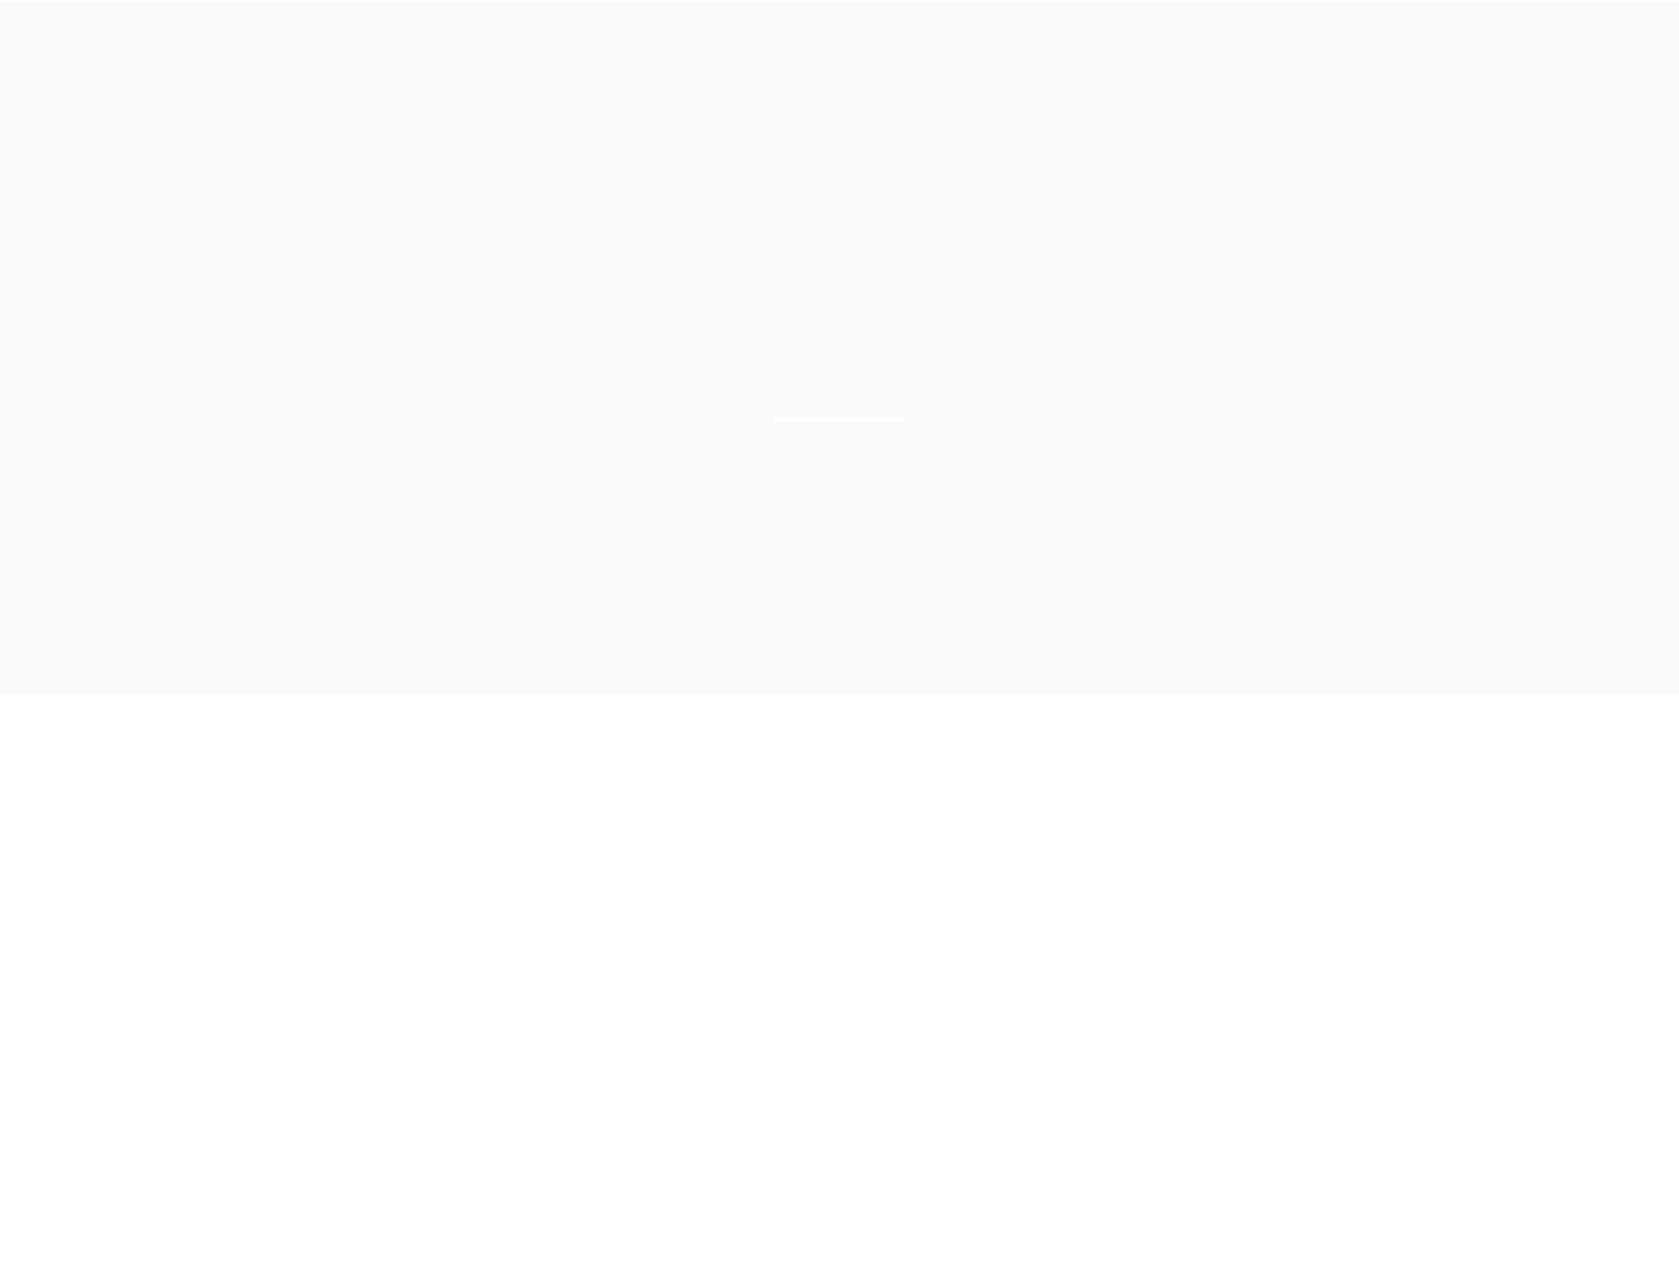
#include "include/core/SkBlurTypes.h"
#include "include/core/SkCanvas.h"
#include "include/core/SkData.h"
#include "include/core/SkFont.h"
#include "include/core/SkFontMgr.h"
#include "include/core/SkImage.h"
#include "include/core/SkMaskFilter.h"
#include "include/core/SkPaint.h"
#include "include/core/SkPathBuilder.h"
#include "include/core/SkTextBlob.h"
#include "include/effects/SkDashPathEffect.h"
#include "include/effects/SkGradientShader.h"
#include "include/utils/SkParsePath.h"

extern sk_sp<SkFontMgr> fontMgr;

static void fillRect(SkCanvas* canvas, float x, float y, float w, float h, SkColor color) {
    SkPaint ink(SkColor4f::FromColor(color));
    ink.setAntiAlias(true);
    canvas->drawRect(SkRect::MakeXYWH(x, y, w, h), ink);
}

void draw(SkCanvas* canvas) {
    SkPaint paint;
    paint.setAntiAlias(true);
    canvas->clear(0xFFFFFFFF);
    fillRect(canvas, 0, 2, 1679, 692, 0xFFFAFAFA);
    fillRect(canvas, 775, 417, 129, 5, 0xFFFFFFFF);
}
